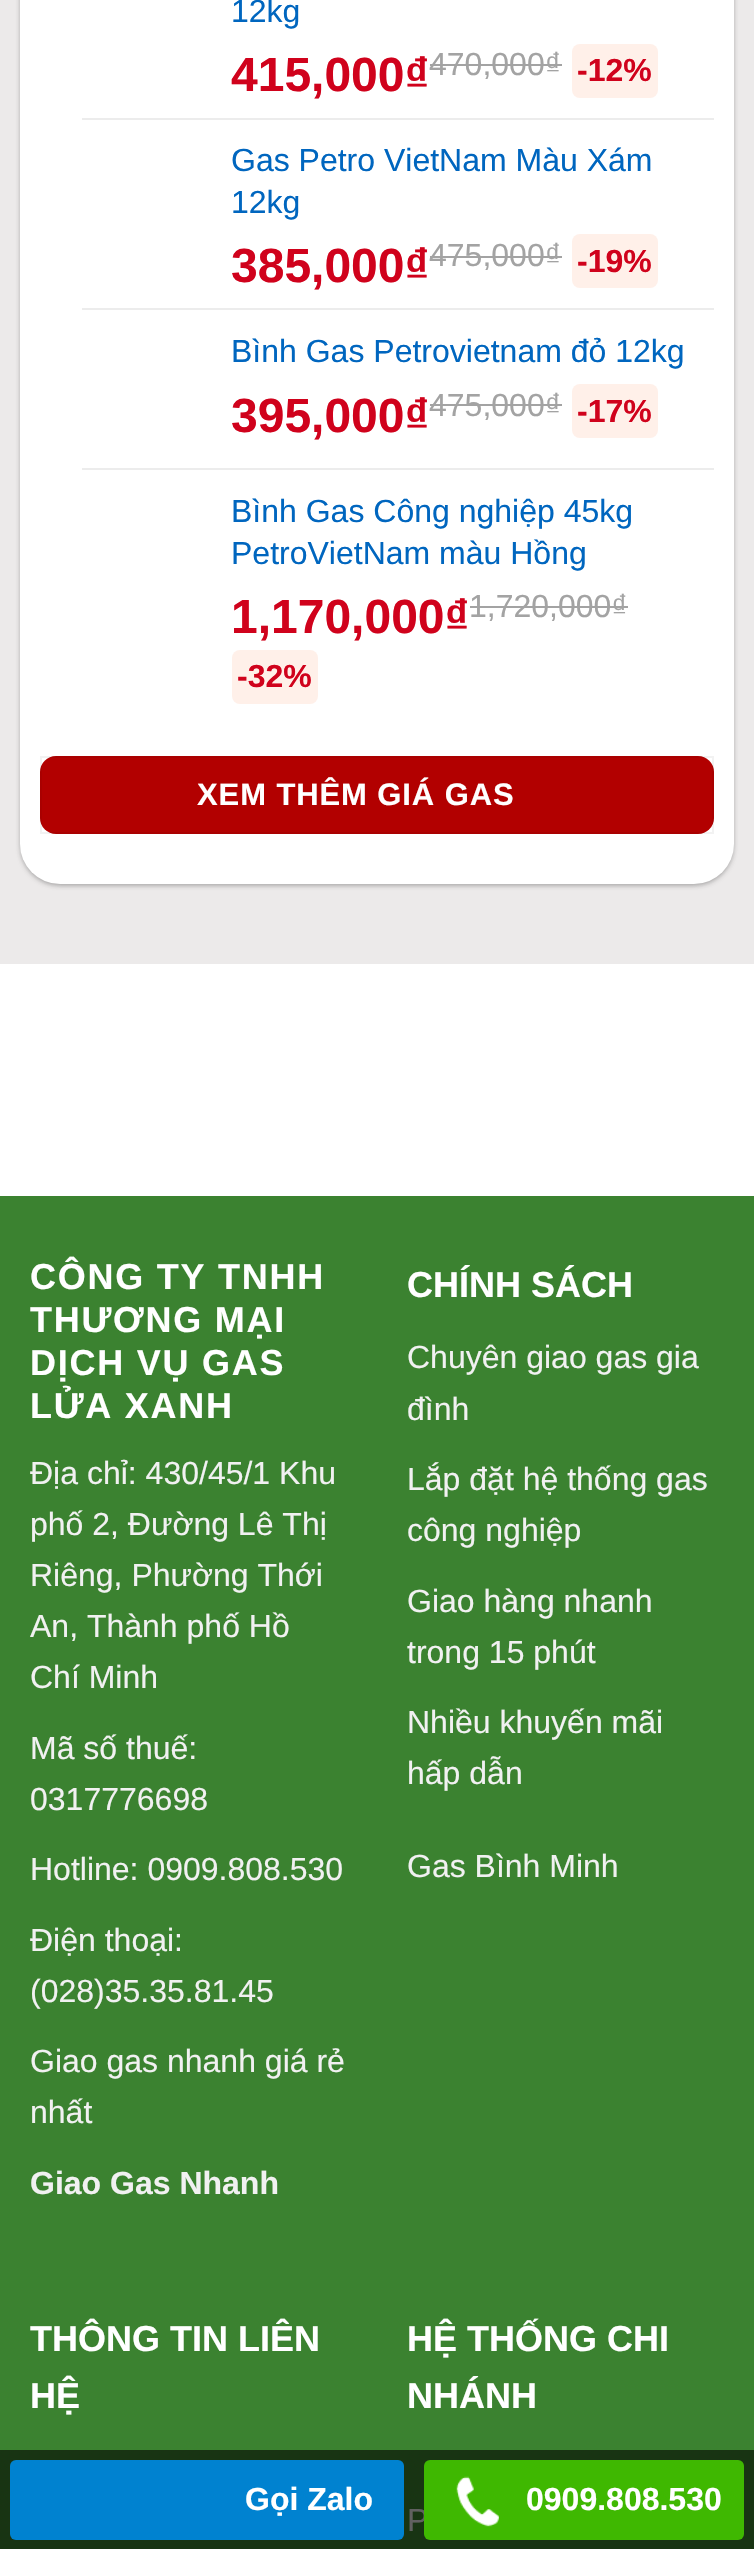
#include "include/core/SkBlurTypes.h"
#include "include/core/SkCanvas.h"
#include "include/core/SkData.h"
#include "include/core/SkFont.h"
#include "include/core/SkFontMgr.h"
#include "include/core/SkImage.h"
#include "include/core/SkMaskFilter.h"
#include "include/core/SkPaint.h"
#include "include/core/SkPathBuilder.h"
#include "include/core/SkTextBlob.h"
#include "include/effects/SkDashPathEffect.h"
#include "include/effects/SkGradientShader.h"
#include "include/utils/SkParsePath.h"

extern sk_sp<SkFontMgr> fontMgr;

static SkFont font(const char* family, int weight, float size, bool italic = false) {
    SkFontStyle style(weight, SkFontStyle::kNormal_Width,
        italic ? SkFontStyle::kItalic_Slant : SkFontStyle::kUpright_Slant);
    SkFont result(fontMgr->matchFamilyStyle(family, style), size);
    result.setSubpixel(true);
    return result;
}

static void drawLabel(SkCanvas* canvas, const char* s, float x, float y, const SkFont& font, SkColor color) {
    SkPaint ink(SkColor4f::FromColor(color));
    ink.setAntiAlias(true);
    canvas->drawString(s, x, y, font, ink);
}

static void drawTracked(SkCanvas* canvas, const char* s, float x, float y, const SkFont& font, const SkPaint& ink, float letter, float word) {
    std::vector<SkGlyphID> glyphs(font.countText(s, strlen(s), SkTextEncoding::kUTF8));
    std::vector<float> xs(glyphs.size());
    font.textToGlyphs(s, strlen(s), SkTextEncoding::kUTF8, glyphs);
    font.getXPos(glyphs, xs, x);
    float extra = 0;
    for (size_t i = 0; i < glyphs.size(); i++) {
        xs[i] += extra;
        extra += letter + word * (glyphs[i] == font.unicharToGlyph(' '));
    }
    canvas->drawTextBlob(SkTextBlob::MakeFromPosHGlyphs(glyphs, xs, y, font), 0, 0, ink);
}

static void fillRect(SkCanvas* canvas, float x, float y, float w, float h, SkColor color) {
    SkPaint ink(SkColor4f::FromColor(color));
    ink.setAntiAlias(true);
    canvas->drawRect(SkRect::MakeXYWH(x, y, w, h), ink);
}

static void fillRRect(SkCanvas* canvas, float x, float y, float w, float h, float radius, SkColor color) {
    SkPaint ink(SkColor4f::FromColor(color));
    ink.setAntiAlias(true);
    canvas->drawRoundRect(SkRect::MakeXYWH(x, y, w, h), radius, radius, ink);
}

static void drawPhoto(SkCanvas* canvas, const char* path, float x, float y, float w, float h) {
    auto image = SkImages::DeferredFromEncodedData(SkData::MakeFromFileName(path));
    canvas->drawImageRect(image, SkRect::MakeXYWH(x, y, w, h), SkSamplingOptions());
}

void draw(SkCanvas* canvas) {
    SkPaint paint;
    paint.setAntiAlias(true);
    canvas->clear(0xFFFFFFFF);
    fillRect(canvas, 0, 0, 754, 964, 0xFFECEAEA);
    paint.setColor(0x3D000000);
    paint.setMaskFilter(SkMaskFilter::MakeBlur(kNormal_SkBlurStyle, 2));
    canvas->drawRoundRect(SkRect::MakeXYWH(20, -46, 714, 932), 40, 40, paint);
    paint.setMaskFilter(nullptr);
    paint.setColor(0x1F000000);
    paint.setMaskFilter(SkMaskFilter::MakeBlur(kNormal_SkBlurStyle, 3));
    canvas->drawRoundRect(SkRect::MakeXYWH(24, -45, 706, 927), 36, 36, paint);
    paint.setMaskFilter(nullptr);
    fillRRect(canvas, 20, -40, 714, 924, 40, 0xFFFFFFFF);
    SkFont font1 = font("Liberation Sans", 400, 32);
    drawLabel(canvas, "12kg", 231, 22, font1, 0xFF0066BF);
    SkFont font2 = font("Liberation Sans", 700, 48);
    drawLabel(canvas, "415,000₫", 231, 91, font2, 0xFFD0021C);
    drawLabel(canvas, "470,000₫", 429, 75, font1, 0xFFA3A3A3);
    fillRect(canvas, 430, 64, 132, 2, 0xFFA3A3A3);
    fillRRect(canvas, 572, 44, 86, 54, 8, 0xFFFFF0E9);
    SkFont font3 = font("Liberation Sans", 700, 32);
    drawLabel(canvas, "-12%", 577, 81, font3, 0xFFD0021C);
    fillRect(canvas, 82, 118, 632, 2, 0xFFECECEC);
    drawLabel(canvas, "Gas Petro VietNam Màu Xám", 231, 171, font1, 0xFF0066BF);
    drawLabel(canvas, "12kg", 231, 213, font1, 0xFF0066BF);
    drawLabel(canvas, "385,000₫", 231, 282, font2, 0xFFD0021C);
    drawLabel(canvas, "475,000₫", 429, 266, font1, 0xFFA3A3A3);
    fillRect(canvas, 430, 256, 132, 2, 0xFFA3A3A3);
    fillRRect(canvas, 572, 234, 86, 54, 8, 0xFFFFF0E9);
    drawLabel(canvas, "-19%", 577, 272, font3, 0xFFD0021C);
    fillRect(canvas, 82, 308, 632, 2, 0xFFECECEC);
    drawLabel(canvas, "Bình Gas Petrovietnam đỏ 12kg", 231, 362, font1, 0xFF0066BF);
    drawLabel(canvas, "395,000₫", 231, 432, font2, 0xFFD0021C);
    drawLabel(canvas, "475,000₫", 429, 416, font1, 0xFFA3A3A3);
    fillRect(canvas, 430, 404, 132, 2, 0xFFA3A3A3);
    fillRRect(canvas, 572, 384, 86, 54, 8, 0xFFFFF0E9);
    drawLabel(canvas, "-17%", 577, 422, font3, 0xFFD0021C);
    fillRect(canvas, 82, 468, 632, 2, 0xFFECECEC);
    drawLabel(canvas, "Bình Gas Công nghiệp 45kg", 231, 522, font1, 0xFF0066BF);
    drawLabel(canvas, "PetroVietNam màu Hồng", 231, 564, font1, 0xFF0066BF);
    drawLabel(canvas, "1,170,000₫", 231, 633, font2, 0xFFD0021C);
    drawLabel(canvas, "1,720,000₫", 469, 617, font1, 0xFFA3A3A3);
    fillRect(canvas, 470, 606, 158, 2, 0xFFA3A3A3);
    fillRRect(canvas, 232, 650, 86, 54, 8, 0xFFFFF0E9);
    drawLabel(canvas, "-32%", 237, 687, font3, 0xFFD0021C);
    fillRRect(canvas, 40, 756, 674, 78, 16, 0xFFB20000);
    paint.setStroke(true);
    paint.setStrokeWidth(2);
    paint.setColor(0x0D000000);
    canvas->drawRect(SkRect::MakeXYWH(41, 757, 672, 76), paint);
    SkFont font4 = font("Liberation Sans", 700, 31);
    paint.setStroke(false);
    paint.setColor(0xFFFFFFFF);
    drawTracked(canvas, "XEM THÊM GIÁ GAS", 197, 805, font4, paint, 0.9f, 0);
    fillRect(canvas, 0, 1196, 754, 1254, 0xFF3B8230);
    fillRect(canvas, 0, 2450, 754, 99, 0xFF183413);
    SkFont font5 = font("Liberation Sans", 700, 36);
    drawTracked(canvas, "CÔNG TY TNHH", 30, 1289, font5, paint, 1.75f, 0);
    drawTracked(canvas, "THƯƠNG MẠI", 30, 1332, font5, paint, 1.75f, 0);
    drawTracked(canvas, "DỊCH VỤ GAS", 30, 1375, font5, paint, 1.75f, 0);
    drawTracked(canvas, "LỬA XANH", 30, 1418, font5, paint, 1.75f, 0);
    drawLabel(canvas, "Địa chỉ: 430/45/1 Khu", 30, 1484, font1, 0xFFF1F1F1);
    drawLabel(canvas, "phố 2, Đường Lê Thị", 30, 1535, font1, 0xFFF1F1F1);
    drawLabel(canvas, "Riêng, Phường Thới", 30, 1586, font1, 0xFFF1F1F1);
    drawLabel(canvas, "An, Thành phố Hồ", 30, 1637, font1, 0xFFF1F1F1);
    drawLabel(canvas, "Chí Minh", 30, 1688, font1, 0xFFF1F1F1);
    drawLabel(canvas, "Mã số thuế:", 30, 1759, font1, 0xFFF1F1F1);
    drawLabel(canvas, "0317776698", 30, 1810, font1, 0xFFF1F1F1);
    drawLabel(canvas, "Hotline: 0909.808.530", 30, 1880, font1, 0xFFF1F1F1);
    drawLabel(canvas, "Điện thoại:", 30, 1951, font1, 0xFFF1F1F1);
    drawLabel(canvas, "(028)35.35.81.45", 30, 2002, font1, 0xFFF1F1F1);
    drawLabel(canvas, "Giao gas nhanh giá rẻ", 30, 2072, font1, 0xFFF1F1F1);
    drawLabel(canvas, "nhất", 30, 2123, font1, 0xFFF1F1F1);
    drawLabel(canvas, "Giao Gas Nhanh", 30, 2194, font3, 0xFFF1F1F1);
    drawLabel(canvas, "CHÍNH SÁCH", 407, 1297, font5, 0xFFFFFFFF);
    drawLabel(canvas, "Chuyên giao gas gia", 407, 1368, font1, 0xFFF1F1F1);
    drawLabel(canvas, "đình", 407, 1420, font1, 0xFFF1F1F1);
    drawLabel(canvas, "Lắp đặt hệ thống gas", 407, 1490, font1, 0xFFF1F1F1);
    drawLabel(canvas, "công nghiệp", 407, 1541, font1, 0xFFF1F1F1);
    drawLabel(canvas, "Giao hàng nhanh", 407, 1612, font1, 0xFFF1F1F1);
    drawLabel(canvas, "trong 15 phút", 407, 1663, font1, 0xFFF1F1F1);
    drawLabel(canvas, "Nhiều khuyến mãi", 407, 1733, font1, 0xFFF1F1F1);
    drawLabel(canvas, "hấp dẫn", 407, 1784, font1, 0xFFF1F1F1);
    drawLabel(canvas, "Gas Bình Minh", 407, 1877, font1, 0xFFF1F1F1);
    drawLabel(canvas, "THÔNG TIN LIÊN", 30, 2351, font5, 0xFFFFFFFF);
    drawLabel(canvas, "HỆ", 30, 2408, font5, 0xFFFFFFFF);
    drawLabel(canvas, "HỆ THỐNG CHI", 407, 2351, font5, 0xFFFFFFFF);
    drawLabel(canvas, "NHÁNH", 407, 2408, font5, 0xFFFFFFFF);
    drawLabel(canvas, "P", 407, 2531, font1, 0xFF606060);
    fillRRect(canvas, 10, 2460, 394, 80, 6, 0xFF0082D0);
    drawLabel(canvas, "Gọi Zalo", 245, 2510, font3, 0xFFFFFFFF);
    fillRRect(canvas, 424, 2460, 320, 80, 6, 0xFF3FB801);
    drawPhoto(canvas, "assets/img1.png", 456, 2476, 43, 51);
    drawLabel(canvas, "0909.808.530", 526, 2510, font3, 0xFFFFFFFF);
}
